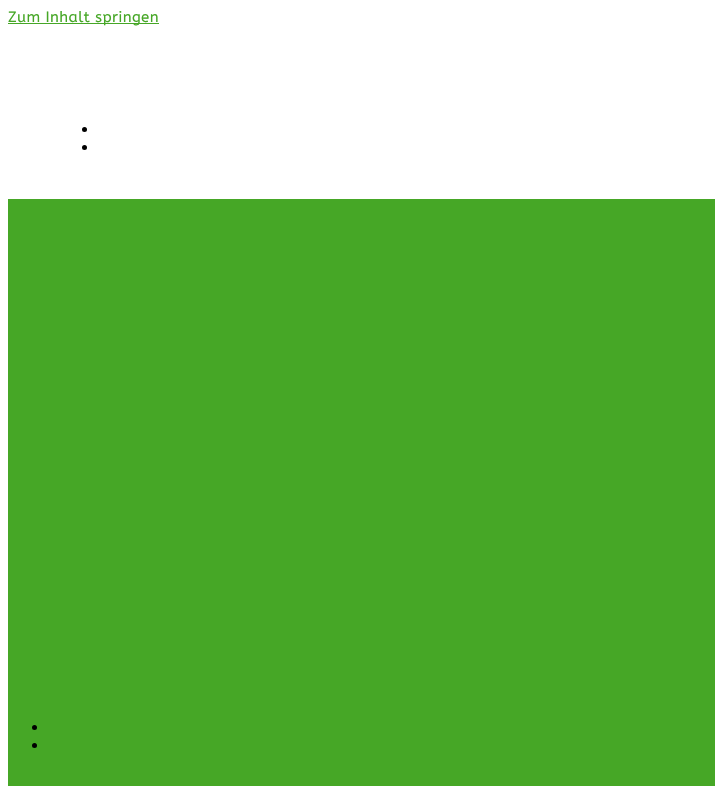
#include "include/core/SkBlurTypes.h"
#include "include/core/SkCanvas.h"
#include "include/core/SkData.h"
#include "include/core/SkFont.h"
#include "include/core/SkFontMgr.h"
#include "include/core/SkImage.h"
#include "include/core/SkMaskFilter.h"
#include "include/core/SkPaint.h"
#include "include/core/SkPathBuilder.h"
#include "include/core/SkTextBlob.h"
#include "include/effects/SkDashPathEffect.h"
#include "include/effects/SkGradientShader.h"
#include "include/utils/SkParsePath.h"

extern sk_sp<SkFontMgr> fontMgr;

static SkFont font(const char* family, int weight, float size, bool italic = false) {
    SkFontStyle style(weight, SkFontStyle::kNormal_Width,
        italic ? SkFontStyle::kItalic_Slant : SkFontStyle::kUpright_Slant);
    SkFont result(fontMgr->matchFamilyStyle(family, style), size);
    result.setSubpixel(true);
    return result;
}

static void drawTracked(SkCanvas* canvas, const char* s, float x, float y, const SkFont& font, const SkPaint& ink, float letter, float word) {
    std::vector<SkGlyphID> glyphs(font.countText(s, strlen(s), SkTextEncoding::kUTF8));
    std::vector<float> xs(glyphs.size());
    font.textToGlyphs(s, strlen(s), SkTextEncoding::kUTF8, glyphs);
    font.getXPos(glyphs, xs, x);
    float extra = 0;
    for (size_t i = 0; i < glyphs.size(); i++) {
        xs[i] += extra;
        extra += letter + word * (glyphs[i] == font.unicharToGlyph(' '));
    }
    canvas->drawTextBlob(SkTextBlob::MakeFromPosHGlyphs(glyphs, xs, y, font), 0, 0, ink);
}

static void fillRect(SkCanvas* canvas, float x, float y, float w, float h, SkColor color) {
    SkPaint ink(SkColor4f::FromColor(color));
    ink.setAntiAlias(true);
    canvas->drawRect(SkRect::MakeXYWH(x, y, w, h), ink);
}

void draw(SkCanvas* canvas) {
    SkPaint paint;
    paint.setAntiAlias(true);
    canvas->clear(0xFFFFFFFF);
    fillRect(canvas, 8, 23, 151, 1, 0xFF46A726);
    SkFont font1 = font("ABeeZee", 400, 15);
    paint.setColor(0xFF46A726);
    drawTracked(canvas, "Zum Inhalt springen", 8, 22, font1, paint, 0.4f, 0);
    paint.setColor(0xFF000000);
    canvas->drawCircle(84.5f, 129.5f, 2.5f, paint);
    canvas->drawCircle(84.5f, 147.5f, 2.5f, paint);
    fillRect(canvas, 8, 199, 707, 587, 0xFF46A726);
    canvas->drawCircle(34.5f, 727.5f, 2.5f, paint);
    canvas->drawCircle(34.5f, 745.5f, 2.5f, paint);
}
